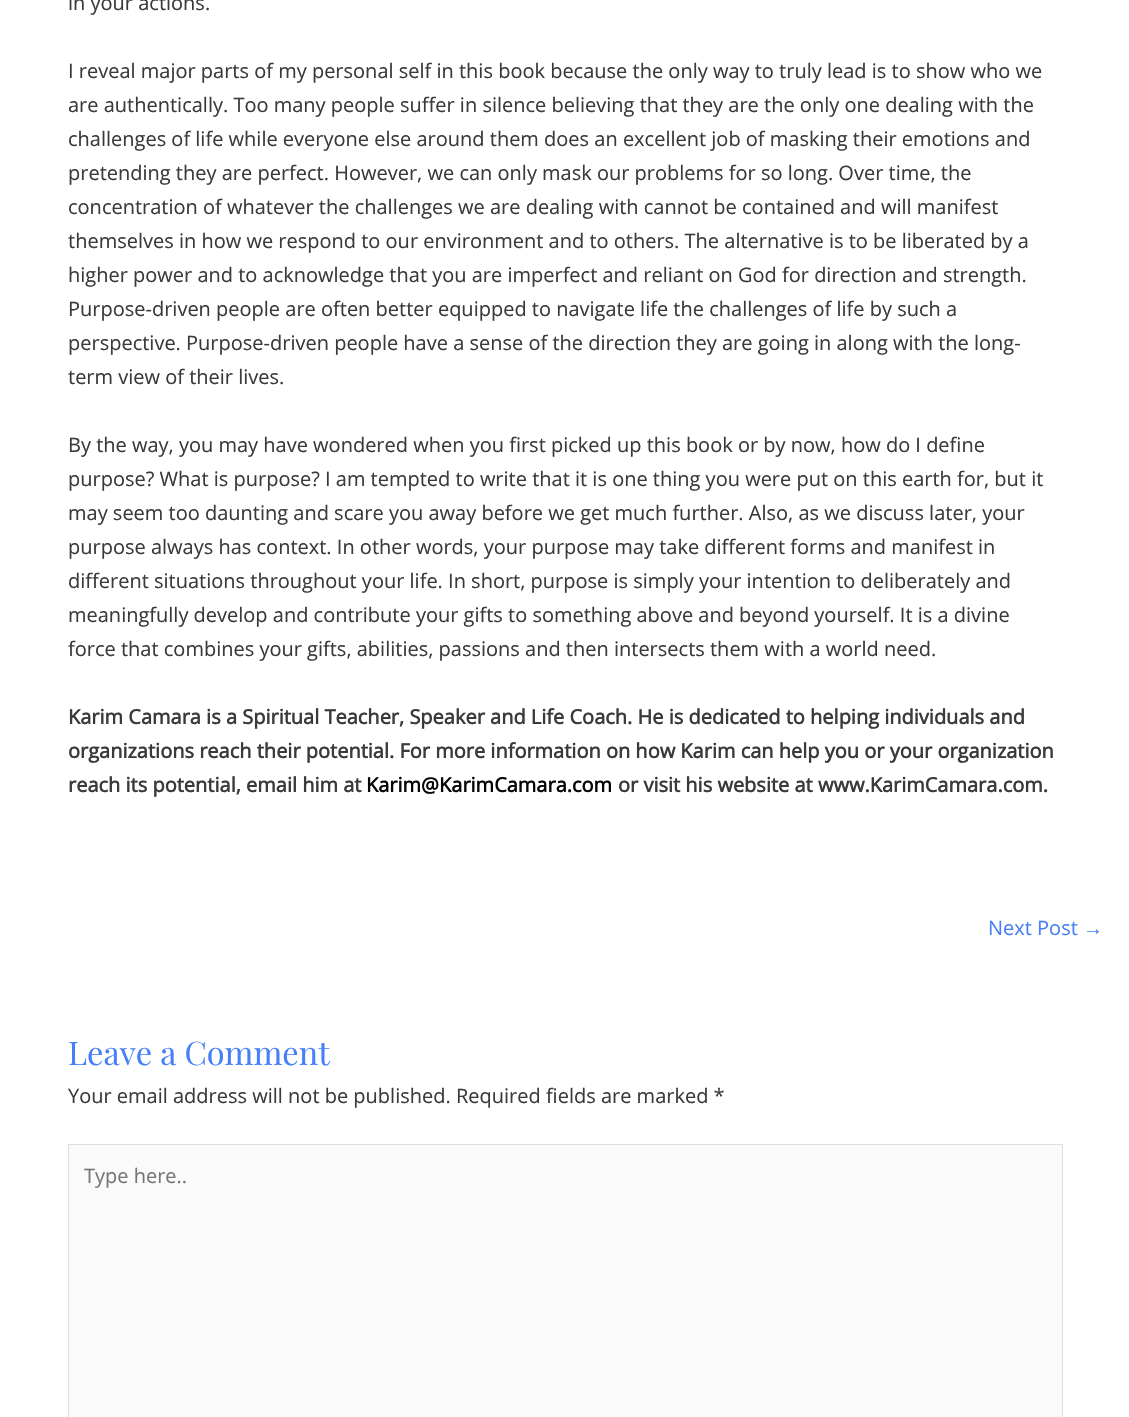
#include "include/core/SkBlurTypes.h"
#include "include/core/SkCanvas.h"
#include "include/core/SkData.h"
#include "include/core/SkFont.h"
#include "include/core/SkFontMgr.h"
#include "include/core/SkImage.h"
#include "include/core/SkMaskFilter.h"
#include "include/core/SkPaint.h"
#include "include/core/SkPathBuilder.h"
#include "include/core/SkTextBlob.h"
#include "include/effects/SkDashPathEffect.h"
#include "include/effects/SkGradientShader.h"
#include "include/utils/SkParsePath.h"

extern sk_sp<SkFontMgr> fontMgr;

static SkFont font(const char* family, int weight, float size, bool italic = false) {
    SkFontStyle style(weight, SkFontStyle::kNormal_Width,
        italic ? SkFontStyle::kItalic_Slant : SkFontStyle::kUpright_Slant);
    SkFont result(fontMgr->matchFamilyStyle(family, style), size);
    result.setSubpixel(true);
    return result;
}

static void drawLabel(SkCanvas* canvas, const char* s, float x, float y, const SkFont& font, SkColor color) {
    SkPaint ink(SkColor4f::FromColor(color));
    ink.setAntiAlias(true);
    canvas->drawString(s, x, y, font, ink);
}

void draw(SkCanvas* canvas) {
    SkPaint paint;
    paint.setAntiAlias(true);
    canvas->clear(0xFFFFFFFF);
    SkFont font1 = font("Open Sans", 400, 20);
    drawLabel(canvas, "in your actions.", 68, 10, font1, 0xFF3A3A3A);
    drawLabel(canvas, "I reveal major parts of my personal self in this book because the only way to truly lead is to show who we", 68, 78, font1, 0xFF3A3A3A);
    drawLabel(canvas, "are authentically. Too many people suffer in silence believing that they are the only one dealing with the", 68, 112, font1, 0xFF3A3A3A);
    drawLabel(canvas, "challenges of life while everyone else around them does an excellent job of masking their emotions and", 68, 146, font1, 0xFF3A3A3A);
    drawLabel(canvas, "pretending they are perfect. However, we can only mask our problems for so long. Over time, the", 68, 180, font1, 0xFF3A3A3A);
    drawLabel(canvas, "concentration of whatever the challenges we are dealing with cannot be contained and will manifest", 68, 214, font1, 0xFF3A3A3A);
    drawLabel(canvas, "themselves in how we respond to our environment and to others. The alternative is to be liberated by a", 68, 248, font1, 0xFF3A3A3A);
    drawLabel(canvas, "higher power and to acknowledge that you are imperfect and reliant on God for direction and strength.", 68, 282, font1, 0xFF3A3A3A);
    drawLabel(canvas, "Purpose-driven people are often better equipped to navigate life the challenges of life by such a", 68, 316, font1, 0xFF3A3A3A);
    drawLabel(canvas, "perspective. Purpose-driven people have a sense of the direction they are going in along with the long-", 68, 350, font1, 0xFF3A3A3A);
    drawLabel(canvas, "term view of their lives.", 68, 384, font1, 0xFF3A3A3A);
    drawLabel(canvas, "By the way, you may have wondered when you first picked up this book or by now, how do I define", 68, 452, font1, 0xFF3A3A3A);
    drawLabel(canvas, "purpose? What is purpose? I am tempted to write that it is one thing you were put on this earth for, but it", 68, 486, font1, 0xFF3A3A3A);
    drawLabel(canvas, "may seem too daunting and scare you away before we get much further. Also, as we discuss later, your", 68, 520, font1, 0xFF3A3A3A);
    drawLabel(canvas, "purpose always has context. In other words, your purpose may take different forms and manifest in", 68, 554, font1, 0xFF3A3A3A);
    drawLabel(canvas, "different situations throughout your life. In short, purpose is simply your intention to deliberately and", 68, 588, font1, 0xFF3A3A3A);
    drawLabel(canvas, "meaningfully develop and contribute your gifts to something above and beyond yourself. It is a divine", 68, 622, font1, 0xFF3A3A3A);
    drawLabel(canvas, "force that combines your gifts, abilities, passions and then intersects them with a world need.", 68, 656, font1, 0xFF3A3A3A);
    SkFont font2 = font("Open Sans", 700, 20);
    drawLabel(canvas, "Karim Camara is a Spiritual Teacher, Speaker and Life Coach. He is dedicated to helping individuals and", 68, 724, font2, 0xFF3A3A3A);
    drawLabel(canvas, "organizations reach their potential. For more information on how Karim can help you or your organization", 68, 758, font2, 0xFF3A3A3A);
    drawLabel(canvas, "reach its potential, email him at", 68, 792, font2, 0xFF3A3A3A);
    drawLabel(canvas, "Karim@KarimCamara.com", 366, 792, font2, 0xFF070606);
    drawLabel(canvas, "or visit his website at www.KarimCamara.com.", 618, 792, font2, 0xFF3A3A3A);
    drawLabel(canvas, "Next Post", 988, 935, font1, 0xFF467FF7);
    SkFont font3 = font("Liberation Sans", 400, 20);
    drawLabel(canvas, "→", 1083, 935, font3, 0xFF467FF7);
    SkFont font4 = font("Playfair Display", 400, 32.5f);
    drawLabel(canvas, "Leave a Comment", 68, 1065, font4, 0xFF467FF7);
    drawLabel(canvas, "Your email address will not be published. Required fields are marked *", 68, 1103, font1, 0xFF3A3A3A);
    paint.setColor(0xFFFAFAFA);
    canvas->drawRect(SkRect::MakeXYWH(68.5f, 1144.5f, 994, 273), paint);
    paint.setStroke(true);
    paint.setStrokeWidth(1);
    paint.setColor(0xFFDDDDDD);
    canvas->drawRect(SkRect::MakeXYWH(68.5f, 1144.5f, 994, 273), paint);
    drawLabel(canvas, "Type here..", 84, 1183, font1, 0xFF757575);
}
